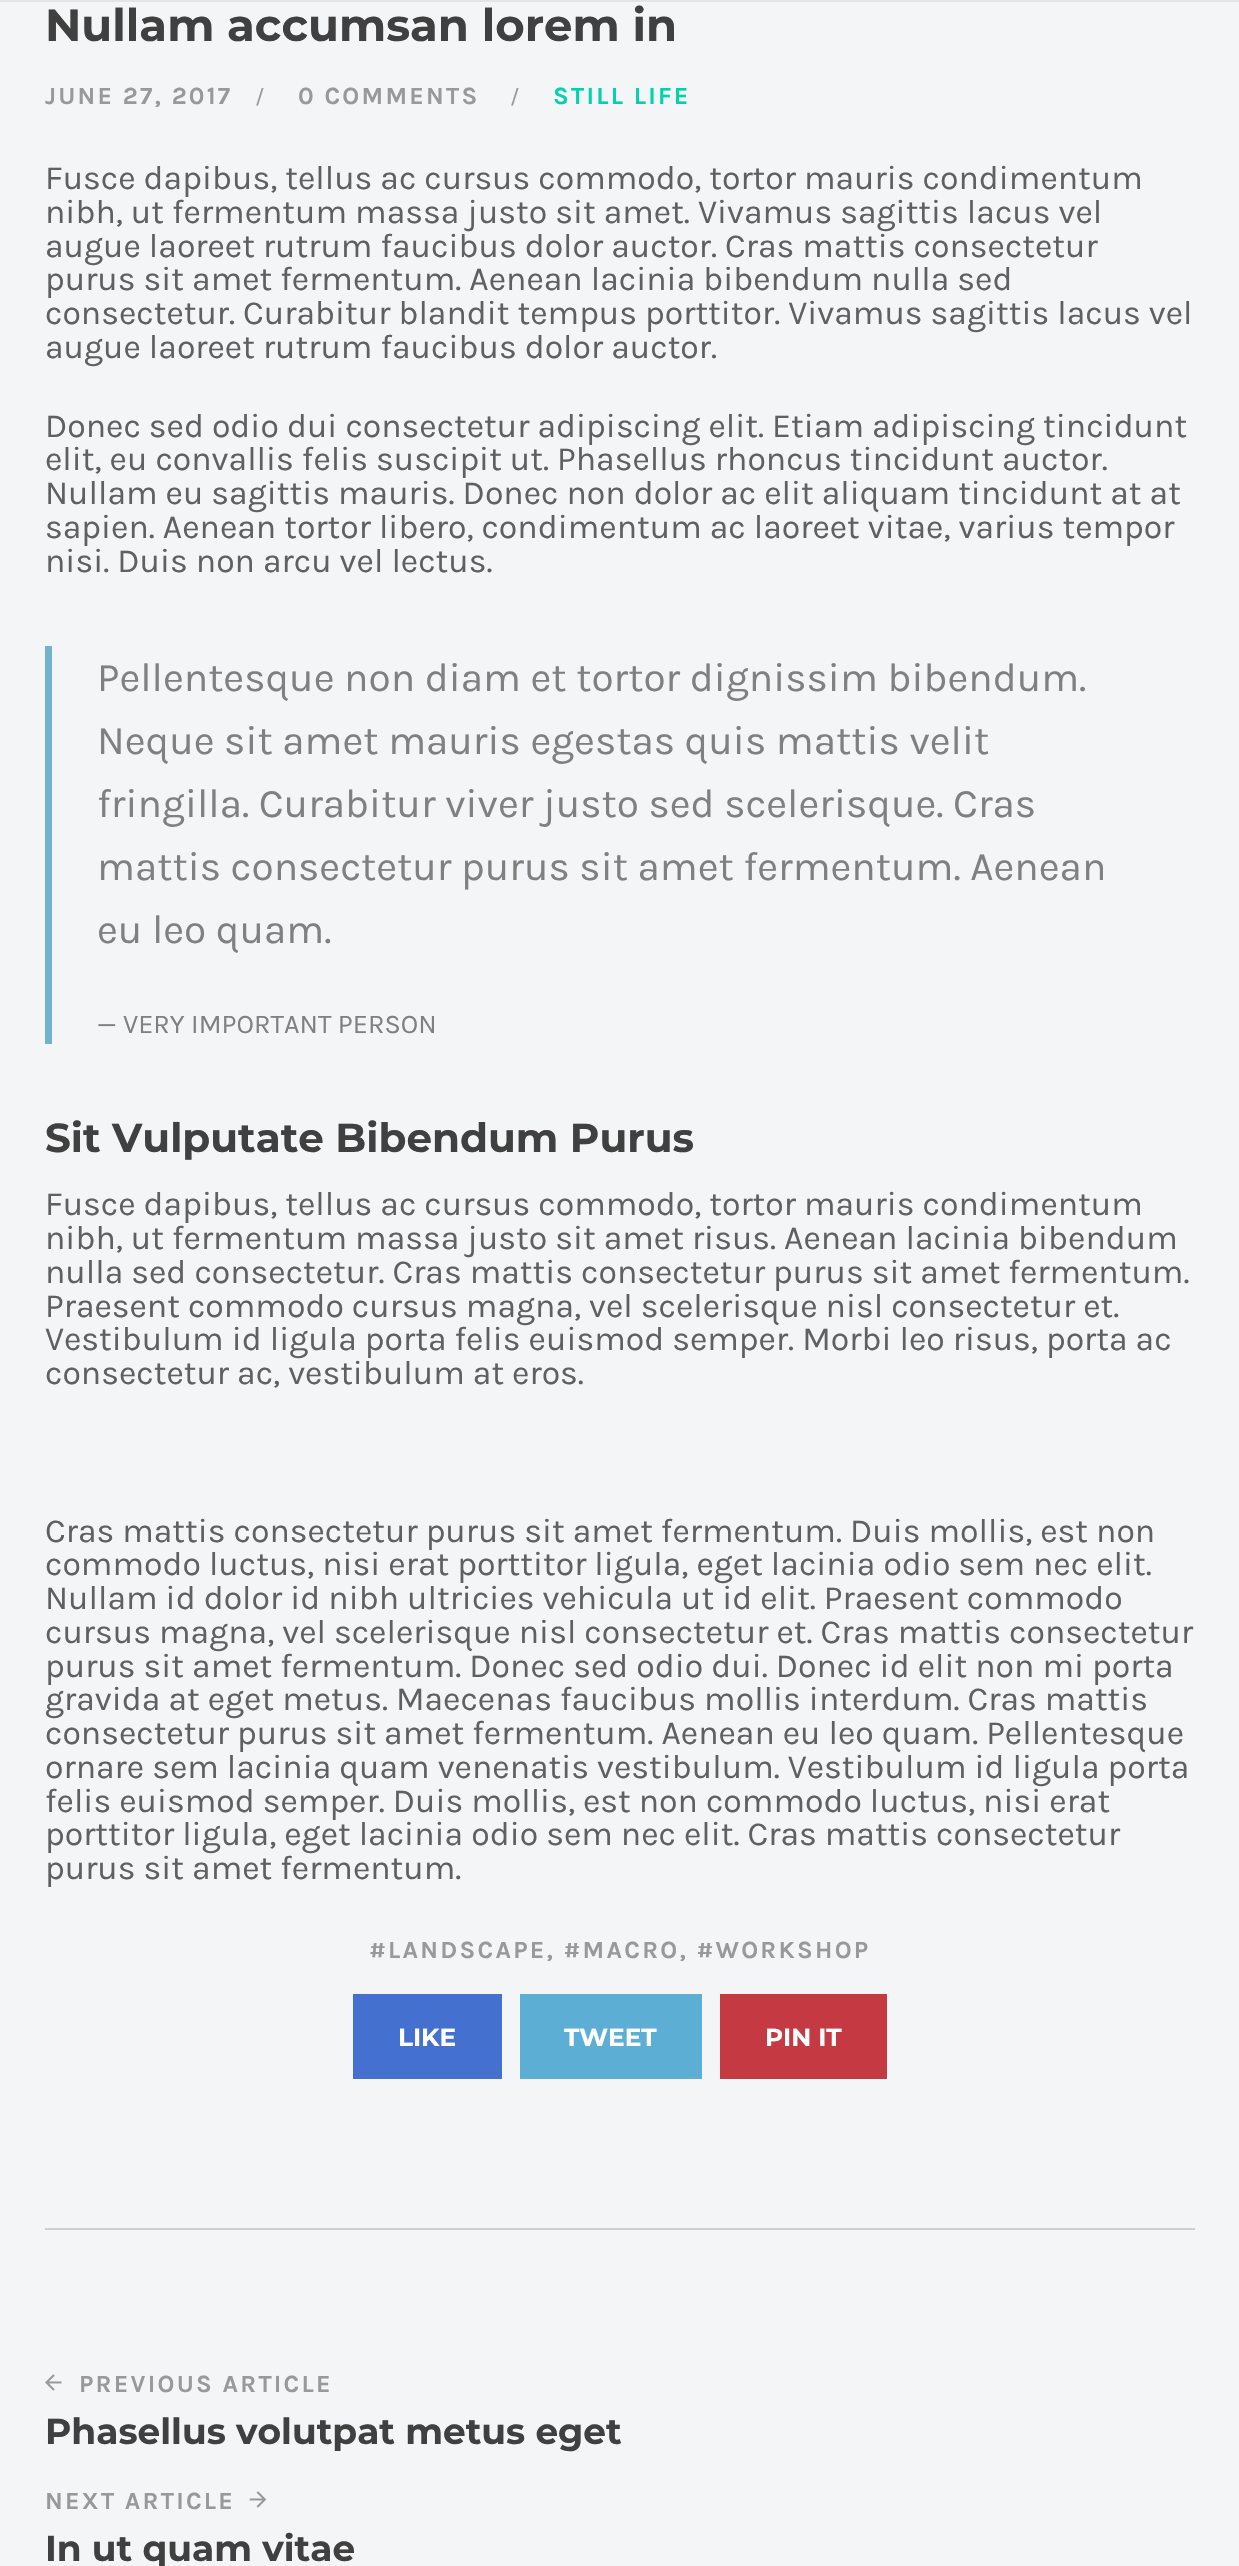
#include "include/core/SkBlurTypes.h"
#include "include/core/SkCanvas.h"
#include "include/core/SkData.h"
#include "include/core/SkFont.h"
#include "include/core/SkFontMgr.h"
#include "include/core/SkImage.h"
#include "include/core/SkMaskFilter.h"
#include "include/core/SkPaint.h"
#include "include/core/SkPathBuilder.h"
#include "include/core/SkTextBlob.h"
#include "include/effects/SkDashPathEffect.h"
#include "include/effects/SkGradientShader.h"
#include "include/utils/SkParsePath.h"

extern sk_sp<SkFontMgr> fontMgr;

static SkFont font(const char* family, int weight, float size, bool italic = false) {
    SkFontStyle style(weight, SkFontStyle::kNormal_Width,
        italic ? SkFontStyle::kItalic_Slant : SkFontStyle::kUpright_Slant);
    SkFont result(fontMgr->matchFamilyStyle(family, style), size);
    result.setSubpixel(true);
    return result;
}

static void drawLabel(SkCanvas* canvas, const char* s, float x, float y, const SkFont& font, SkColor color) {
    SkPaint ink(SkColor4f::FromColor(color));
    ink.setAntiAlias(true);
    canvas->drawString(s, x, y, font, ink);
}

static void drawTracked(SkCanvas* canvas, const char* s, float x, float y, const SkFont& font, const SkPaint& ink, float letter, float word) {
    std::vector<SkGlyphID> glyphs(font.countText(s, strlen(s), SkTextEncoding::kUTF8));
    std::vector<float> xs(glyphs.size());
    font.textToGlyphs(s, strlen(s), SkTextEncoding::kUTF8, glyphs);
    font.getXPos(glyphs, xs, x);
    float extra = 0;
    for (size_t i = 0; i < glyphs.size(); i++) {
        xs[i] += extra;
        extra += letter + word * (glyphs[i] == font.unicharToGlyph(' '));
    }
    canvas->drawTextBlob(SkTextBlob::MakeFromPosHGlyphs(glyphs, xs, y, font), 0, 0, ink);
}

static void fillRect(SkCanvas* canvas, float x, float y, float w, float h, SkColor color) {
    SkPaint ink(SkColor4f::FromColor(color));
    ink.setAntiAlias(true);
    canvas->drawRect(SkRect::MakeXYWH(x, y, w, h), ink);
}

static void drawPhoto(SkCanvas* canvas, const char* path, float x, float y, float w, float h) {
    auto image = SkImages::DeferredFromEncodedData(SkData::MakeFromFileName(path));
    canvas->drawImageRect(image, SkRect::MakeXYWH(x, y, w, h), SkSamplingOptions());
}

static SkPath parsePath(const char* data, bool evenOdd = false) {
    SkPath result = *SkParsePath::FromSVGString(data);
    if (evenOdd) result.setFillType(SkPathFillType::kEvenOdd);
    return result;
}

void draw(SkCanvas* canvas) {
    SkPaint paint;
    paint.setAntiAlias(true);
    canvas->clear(0xFFF4F5F7);
    paint.setColor(0xFFE3E4E6);
    canvas->drawPath(parsePath("M0 0V2H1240V-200V0Z"), paint);
    SkFont font1 = font("Montserrat", 700, 45);
    drawLabel(canvas, "Nullam accumsan lorem in", 45, 41, font1, 0xFF404040);
    SkFont font2 = font("Karla", 700, 24.75f);
    paint.setColor(0xFF999999);
    drawTracked(canvas, "JUNE 27, 2017", 45, 104, font2, paint, 2.25f, 0);
    SkFont font3 = font("Karla", 400, 22);
    drawTracked(canvas, "/", 255, 104, font3, paint, 2.25f, 0);
    drawTracked(canvas, "0 COMMENTS", 298, 104, font2, paint, 2.25f, 0);
    drawTracked(canvas, "/", 510, 104, font3, paint, 2.25f, 0);
    paint.setColor(0xFF00D3AB);
    drawTracked(canvas, "STILL LIFE", 553, 104, font2, paint, 2.25f, 0);
    SkFont font4 = font("Karla", 400, 33.75f);
    drawLabel(canvas, "Fusce dapibus, tellus ac cursus commodo, tortor mauris condimentum", 45, 189, font4, 0xFF606060);
    drawLabel(canvas, "nibh, ut fermentum massa justo sit amet. Vivamus sagittis lacus vel", 45, 223, font4, 0xFF606060);
    drawLabel(canvas, "augue laoreet rutrum faucibus dolor auctor. Cras mattis consectetur", 45, 257, font4, 0xFF606060);
    drawLabel(canvas, "purus sit amet fermentum. Aenean lacinia bibendum nulla sed", 45, 290, font4, 0xFF606060);
    drawLabel(canvas, "consectetur. Curabitur blandit tempus porttitor. Vivamus sagittis lacus vel", 45, 324, font4, 0xFF606060);
    drawLabel(canvas, "augue laoreet rutrum faucibus dolor auctor.", 45, 358, font4, 0xFF606060);
    drawLabel(canvas, "Donec sed odio dui consectetur adipiscing elit. Etiam adipiscing tincidunt", 45, 437, font4, 0xFF606060);
    drawLabel(canvas, "elit, eu convallis felis suscipit ut. Phasellus rhoncus tincidunt auctor.", 45, 470, font4, 0xFF606060);
    drawLabel(canvas, "Nullam eu sagittis mauris. Donec non dolor ac elit aliquam tincidunt at at", 45, 504, font4, 0xFF606060);
    drawLabel(canvas, "sapien. Aenean tortor libero, condimentum ac laoreet vitae, varius tempor", 45, 538, font4, 0xFF606060);
    drawLabel(canvas, "nisi. Duis non arcu vel lectus.", 45, 572, font4, 0xFF606060);
    fillRect(canvas, 45, 646, 7, 398, 0xFF73B2CF);
    SkFont font5 = font("Karla", 400, 40.5f);
    drawLabel(canvas, "Pellentesque non diam et tortor dignissim bibendum.", 97, 691, font5, 0xFF808080);
    drawLabel(canvas, "Neque sit amet mauris egestas quis mattis velit", 97, 754, font5, 0xFF808080);
    drawLabel(canvas, "fringilla. Curabitur viver justo sed scelerisque. Cras", 97, 817, font5, 0xFF808080);
    drawLabel(canvas, "mattis consectetur purus sit amet fermentum. Aenean", 97, 880, font5, 0xFF808080);
    drawLabel(canvas, "eu leo quam.", 97, 943, font5, 0xFF808080);
    SkFont font6 = font("Karla", 400, 27);
    drawLabel(canvas, "— VERY IMPORTANT PERSON", 97, 1033, font6, 0xFF808080);
    SkFont font7 = font("Montserrat", 700, 40.5f);
    drawLabel(canvas, "Sit Vulputate Bibendum Purus", 45, 1152, font7, 0xFF404040);
    drawLabel(canvas, "Fusce dapibus, tellus ac cursus commodo, tortor mauris condimentum", 45, 1215, font4, 0xFF606060);
    drawLabel(canvas, "nibh, ut fermentum massa justo sit amet risus. Aenean lacinia bibendum", 45, 1249, font4, 0xFF606060);
    drawLabel(canvas, "nulla sed consectetur. Cras mattis consectetur purus sit amet fermentum.", 45, 1283, font4, 0xFF606060);
    drawLabel(canvas, "Praesent commodo cursus magna, vel scelerisque nisl consectetur et.", 45, 1317, font4, 0xFF606060);
    drawLabel(canvas, "Vestibulum id ligula porta felis euismod semper. Morbi leo risus, porta ac", 45, 1350, font4, 0xFF606060);
    drawLabel(canvas, "consectetur ac, vestibulum at eros.", 45, 1384, font4, 0xFF606060);
    drawLabel(canvas, "Cras mattis consectetur purus sit amet fermentum. Duis mollis, est non", 45, 1542, font4, 0xFF606060);
    drawLabel(canvas, "commodo luctus, nisi erat porttitor ligula, eget lacinia odio sem nec elit.", 45, 1575, font4, 0xFF606060);
    drawLabel(canvas, "Nullam id dolor id nibh ultricies vehicula ut id elit. Praesent commodo", 45, 1609, font4, 0xFF606060);
    drawLabel(canvas, "cursus magna, vel scelerisque nisl consectetur et. Cras mattis consectetur", 45, 1643, font4, 0xFF606060);
    drawLabel(canvas, "purus sit amet fermentum. Donec sed odio dui. Donec id elit non mi porta", 45, 1677, font4, 0xFF606060);
    drawLabel(canvas, "gravida at eget metus. Maecenas faucibus mollis interdum. Cras mattis", 45, 1710, font4, 0xFF606060);
    drawLabel(canvas, "consectetur purus sit amet fermentum. Aenean eu leo quam. Pellentesque", 45, 1744, font4, 0xFF606060);
    drawLabel(canvas, "ornare sem lacinia quam venenatis vestibulum. Vestibulum id ligula porta", 45, 1778, font4, 0xFF606060);
    drawLabel(canvas, "felis euismod semper. Duis mollis, est non commodo luctus, nisi erat", 45, 1812, font4, 0xFF606060);
    drawLabel(canvas, "porttitor ligula, eget lacinia odio sem nec elit. Cras mattis consectetur", 45, 1845, font4, 0xFF606060);
    drawLabel(canvas, "purus sit amet fermentum.", 45, 1879, font4, 0xFF606060);
    paint.setColor(0xFF999999);
    drawTracked(canvas, "#LANDSCAPE, #MACRO, #WORKSHOP", 369, 1958, font2, paint, 2.25f, 0);
    fillRect(canvas, 353, 1994, 149, 85, 0xFF4470CF);
    SkFont font8 = font("Montserrat", 700, 24.75f);
    drawLabel(canvas, "LIKE", 398, 2046, font8, 0xFFFFFFFF);
    fillRect(canvas, 520, 1994, 182, 85, 0xFF5DAED5);
    drawLabel(canvas, "TWEET", 564, 2046, font8, 0xFFFFFFFF);
    fillRect(canvas, 720, 1994, 167, 85, 0xFFC53942);
    drawLabel(canvas, "PIN IT", 765, 2046, font8, 0xFFFFFFFF);
    fillRect(canvas, 45, 2228, 1150, 2, 0xFFCFD0D2);
    drawPhoto(canvas, "assets/img1.png", 45, 2374, 17, 17);
    drawTracked(canvas, "PREVIOUS ARTICLE", 79, 2392, font2, paint, 2.25f, 0);
    SkFont font9 = font("Montserrat", 700, 36);
    drawLabel(canvas, "Phasellus volutpat metus eget", 45, 2444, font9, 0xFF404040);
    drawTracked(canvas, "NEXT ARTICLE", 45, 2509, font2, paint, 2.25f, 0);
    drawPhoto(canvas, "assets/img2.png", 249, 2491, 18, 17);
    drawLabel(canvas, "In ut quam vitae", 45, 2561, font9, 0xFF404040);
}
